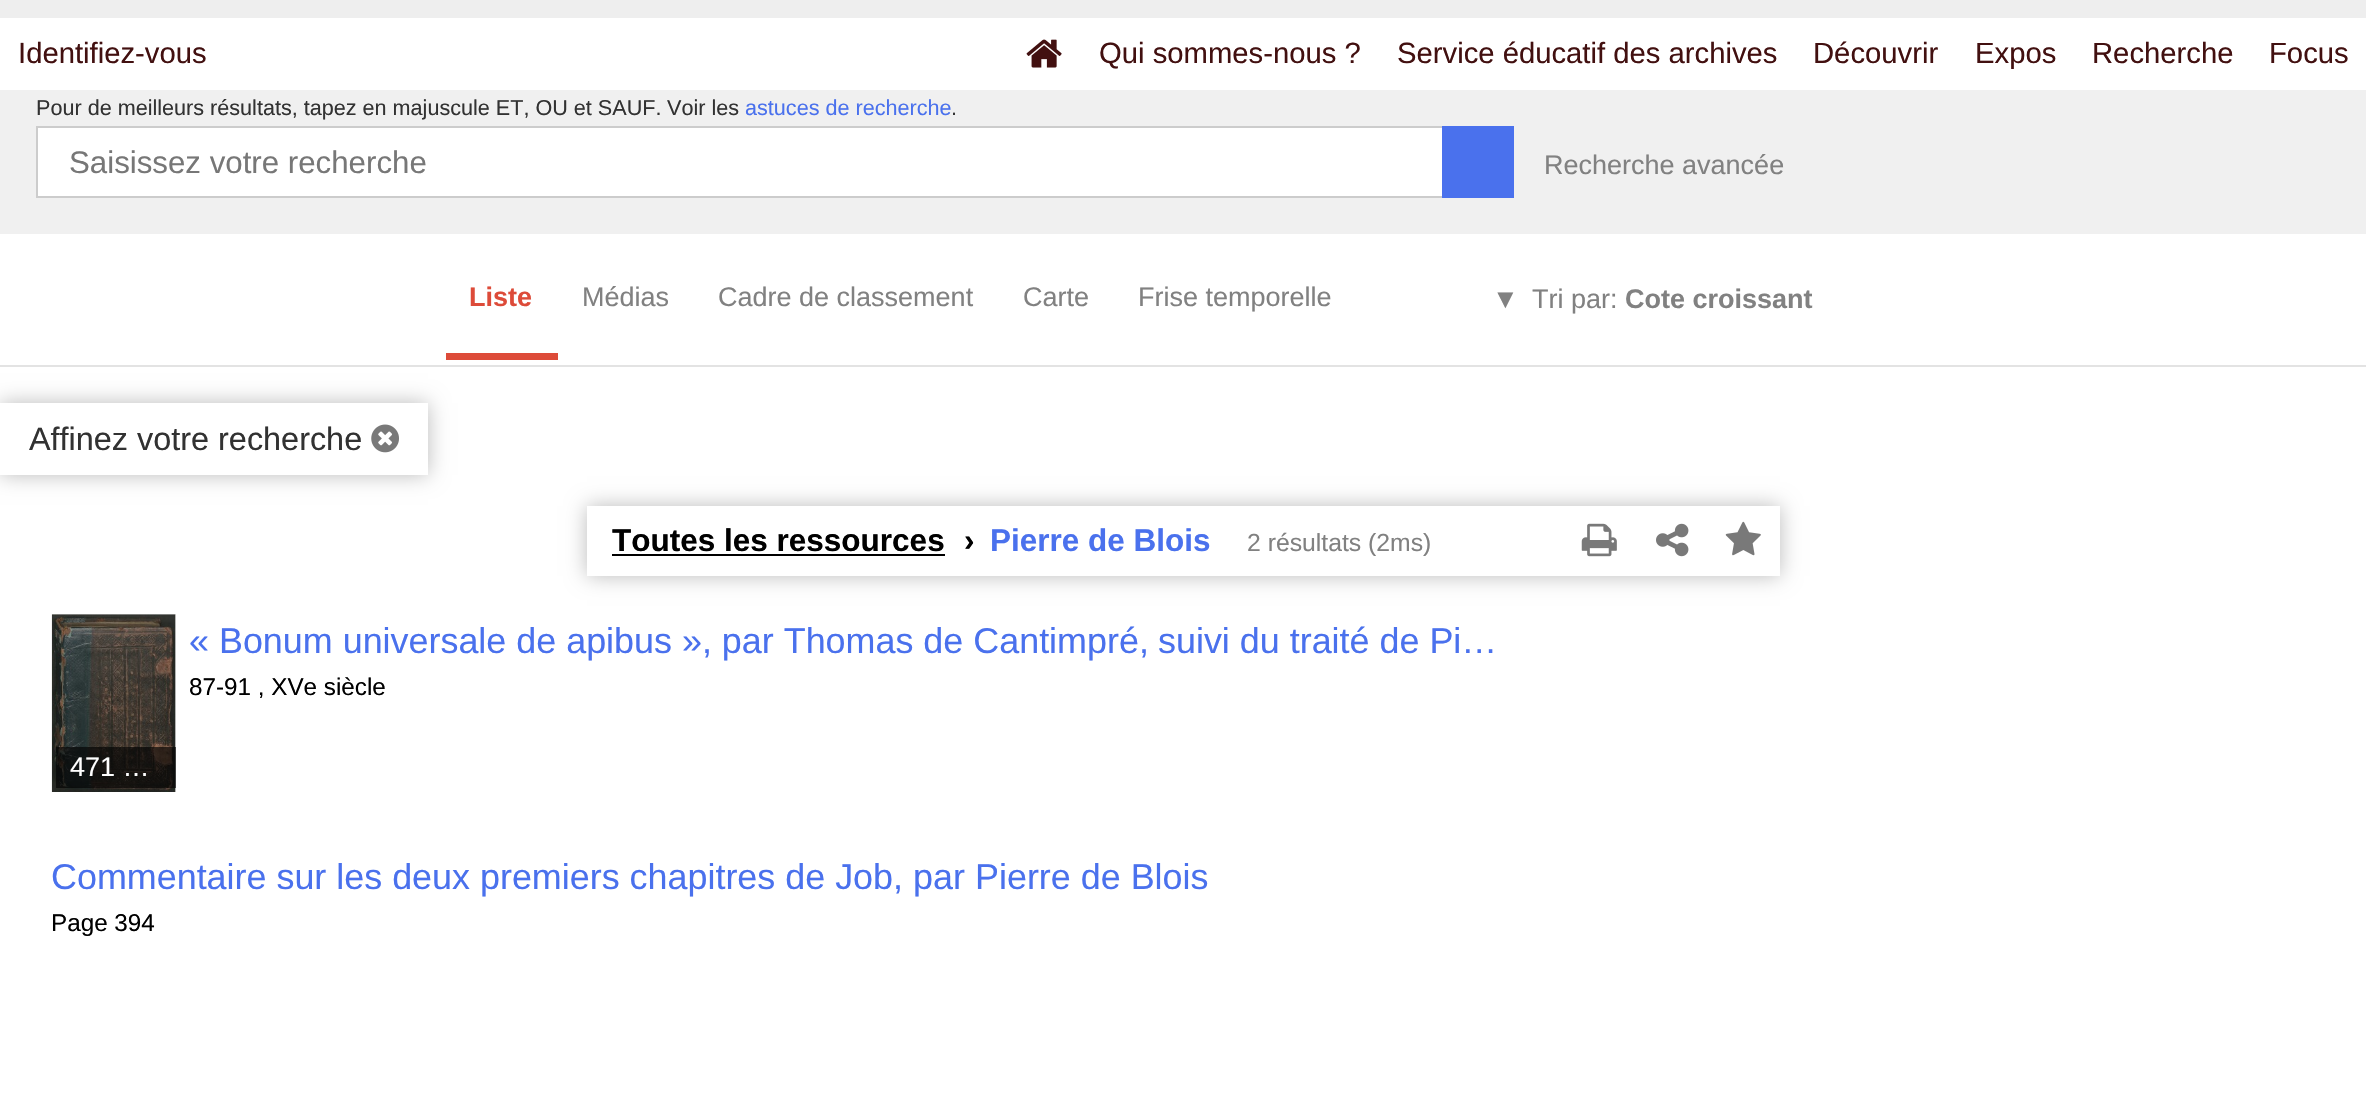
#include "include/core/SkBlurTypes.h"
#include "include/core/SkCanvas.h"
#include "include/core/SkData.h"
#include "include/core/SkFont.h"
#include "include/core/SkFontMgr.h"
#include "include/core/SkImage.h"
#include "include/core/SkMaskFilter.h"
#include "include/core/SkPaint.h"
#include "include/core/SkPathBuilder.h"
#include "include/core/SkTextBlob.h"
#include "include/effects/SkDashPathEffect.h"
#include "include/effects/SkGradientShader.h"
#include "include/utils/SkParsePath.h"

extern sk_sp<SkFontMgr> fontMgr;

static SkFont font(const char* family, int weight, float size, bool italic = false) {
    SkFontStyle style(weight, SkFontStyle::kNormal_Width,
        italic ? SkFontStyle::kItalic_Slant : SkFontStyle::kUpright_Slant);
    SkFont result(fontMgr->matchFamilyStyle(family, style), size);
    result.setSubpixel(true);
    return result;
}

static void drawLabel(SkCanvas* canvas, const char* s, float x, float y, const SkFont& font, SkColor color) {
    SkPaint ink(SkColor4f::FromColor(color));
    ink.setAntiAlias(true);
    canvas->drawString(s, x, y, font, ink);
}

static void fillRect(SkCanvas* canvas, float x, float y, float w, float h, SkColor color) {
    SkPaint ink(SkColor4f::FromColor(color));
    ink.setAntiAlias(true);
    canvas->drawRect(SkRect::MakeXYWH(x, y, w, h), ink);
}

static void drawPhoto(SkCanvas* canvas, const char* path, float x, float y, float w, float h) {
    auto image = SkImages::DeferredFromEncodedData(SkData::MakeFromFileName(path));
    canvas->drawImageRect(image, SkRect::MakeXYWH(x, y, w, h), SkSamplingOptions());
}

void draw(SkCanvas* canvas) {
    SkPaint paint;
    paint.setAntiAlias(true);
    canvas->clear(0xFFFFFFFF);
    fillRect(canvas, 0, 0, 2366, 18, 0xFFEEEEEE);
    SkFont font1 = font("Liberation Sans", 400, 29.25f);
    drawLabel(canvas, "Identifiez-vous", 18, 63, font1, 0xFF421010);
    drawPhoto(canvas, "assets/img1.png", 1026, 39, 36, 29);
    drawLabel(canvas, "Qui sommes-nous ?", 1099, 63, font1, 0xFF421010);
    drawLabel(canvas, "Service éducatif des archives", 1397, 63, font1, 0xFF421010);
    drawLabel(canvas, "Découvrir", 1813, 63, font1, 0xFF421010);
    drawLabel(canvas, "Expos", 1975, 63, font1, 0xFF421010);
    drawLabel(canvas, "Recherche", 2092, 63, font1, 0xFF421010);
    drawLabel(canvas, "Focus", 2269, 63, font1, 0xFF421010);
    fillRect(canvas, 0, 90, 2366, 144, 0xFFF0F0F0);
    SkFont font2 = font("Liberation Sans", 400, 21.6f);
    drawLabel(canvas, "Pour de meilleurs résultats, tapez en majuscule ET, OU et SAUF.", 36, 115, font2, 0xFF323232);
    drawLabel(canvas, "Voir les", 667, 115, font2, 0xFF323232);
    drawLabel(canvas, "astuces de recherche", 745, 115, font2, 0xFF4A71ED);
    drawLabel(canvas, ".", 951, 115, font2, 0xFF323232);
    fillRect(canvas, 38, 128, 1404, 68, 0xFFFFFFFF);
    paint.setStroke(true);
    paint.setStrokeWidth(2);
    paint.setColor(0xFFCCCCCC);
    canvas->drawRect(SkRect::MakeXYWH(37, 127, 1476, 70), paint);
    SkFont font3 = font("Liberation Sans", 400, 31.25f);
    drawLabel(canvas, "Saisissez votre recherche", 69, 173, font3, 0xFF777777);
    fillRect(canvas, 1442, 126, 72, 72, 0xFF4A71ED);
    SkFont font4 = font("Liberation Sans", 400, 27);
    drawLabel(canvas, "Recherche avancée", 1544, 174, font4, 0xFF818181);
    fillRect(canvas, 0, 365, 2366, 2, 0xFFE3E3E3);
    fillRect(canvas, 446, 353, 112, 7, 0xFFDD4B39);
    SkFont font5 = font("Liberation Sans", 700, 27);
    drawLabel(canvas, "Liste", 469, 306, font5, 0xFFDD4B39);
    drawLabel(canvas, "Médias", 582, 306, font4, 0xFF818181);
    drawLabel(canvas, "Cadre de classement", 718, 306, font4, 0xFF818181);
    drawLabel(canvas, "Carte", 1023, 306, font4, 0xFF818181);
    drawLabel(canvas, "Frise temporelle", 1138, 306, font4, 0xFF818181);
    drawLabel(canvas, "▼", 1492, 308, font4, 0xFF818181);
    drawLabel(canvas, "Tri par:", 1532, 308, font4, 0xFF818181);
    drawLabel(canvas, "Cote croissant", 1625, 308, font5, 0xFF818181);
    paint.setStroke(false);
    paint.setColor(0xFFBBBBBB);
    paint.setMaskFilter(SkMaskFilter::MakeBlur(kNormal_SkBlurStyle, 10));
    canvas->drawRect(SkRect::MakeXYWH(0, 403, 428, 72), paint);
    paint.setMaskFilter(nullptr);
    fillRect(canvas, 0, 403, 428, 72, 0xFFFFFFFF);
    SkFont font6 = font("Liberation Sans", 400, 32.4f);
    drawLabel(canvas, "Affinez votre recherche", 29, 450, font6, 0xFF323232);
    drawPhoto(canvas, "assets/img2.png", 371, 424, 28, 29);
    paint.setMaskFilter(SkMaskFilter::MakeBlur(kNormal_SkBlurStyle, 10));
    canvas->drawRect(SkRect::MakeXYWH(587, 506, 1193, 70), paint);
    paint.setMaskFilter(nullptr);
    fillRect(canvas, 587, 506, 1193, 70, 0xFFFFFFFF);
    SkFont font7 = font("Liberation Sans", 700, 31.5f);
    drawLabel(canvas, "Toutes les ressources", 612, 551, font7, 0xFF000000);
    fillRect(canvas, 612, 554, 333, 2, 0xFF000000);
    drawLabel(canvas, "›", 964, 551, font7, 0xFF000000);
    drawLabel(canvas, "Pierre de Blois", 990, 551, font7, 0xFF4A71ED);
    SkFont font8 = font("Liberation Sans", 400, 24.75f);
    drawLabel(canvas, "2 résultats (2ms)", 1247, 551, font8, 0xFF818181);
    drawPhoto(canvas, "assets/img3.png", 1581, 523, 36, 34);
    drawPhoto(canvas, "assets/img4.png", 1656, 523, 33, 34);
    drawPhoto(canvas, "assets/img5.png", 1725, 521, 36, 35);
    SkFont font9 = font("Liberation Sans", 400, 35.9f);
    drawLabel(canvas, "« Bonum universale de apibus », par Thomas de Cantimpré,", 189, 653, font9, 0xFF4A71ED);
    drawLabel(canvas, "suivi du traité de Pi…", 1158, 653, font9, 0xFF4A71ED);
    SkFont font10 = font("Liberation Sans", 400, 24.25f);
    drawLabel(canvas, "87-91 , XVe siècle", 189, 695, font10, 0xFF000000);
    fillRect(canvas, 52, 614, 124, 178, 0xFFE3E3E3);
    drawPhoto(canvas, "assets/img6.png", 51, 614, 125, 178);
    fillRect(canvas, 56, 747, 120, 41, 0xA6000000);
    drawLabel(canvas, "471 …", 70, 776, font4, 0xFFFFFFFF);
    drawLabel(canvas, "Commentaire sur les deux premiers chapitres de Job, par", 51, 889, font9, 0xFF4A71ED);
    drawLabel(canvas, "Pierre de Blois", 975, 889, font9, 0xFF4A71ED);
    drawLabel(canvas, "Page 394", 51, 931, font10, 0xFF000000);
}
